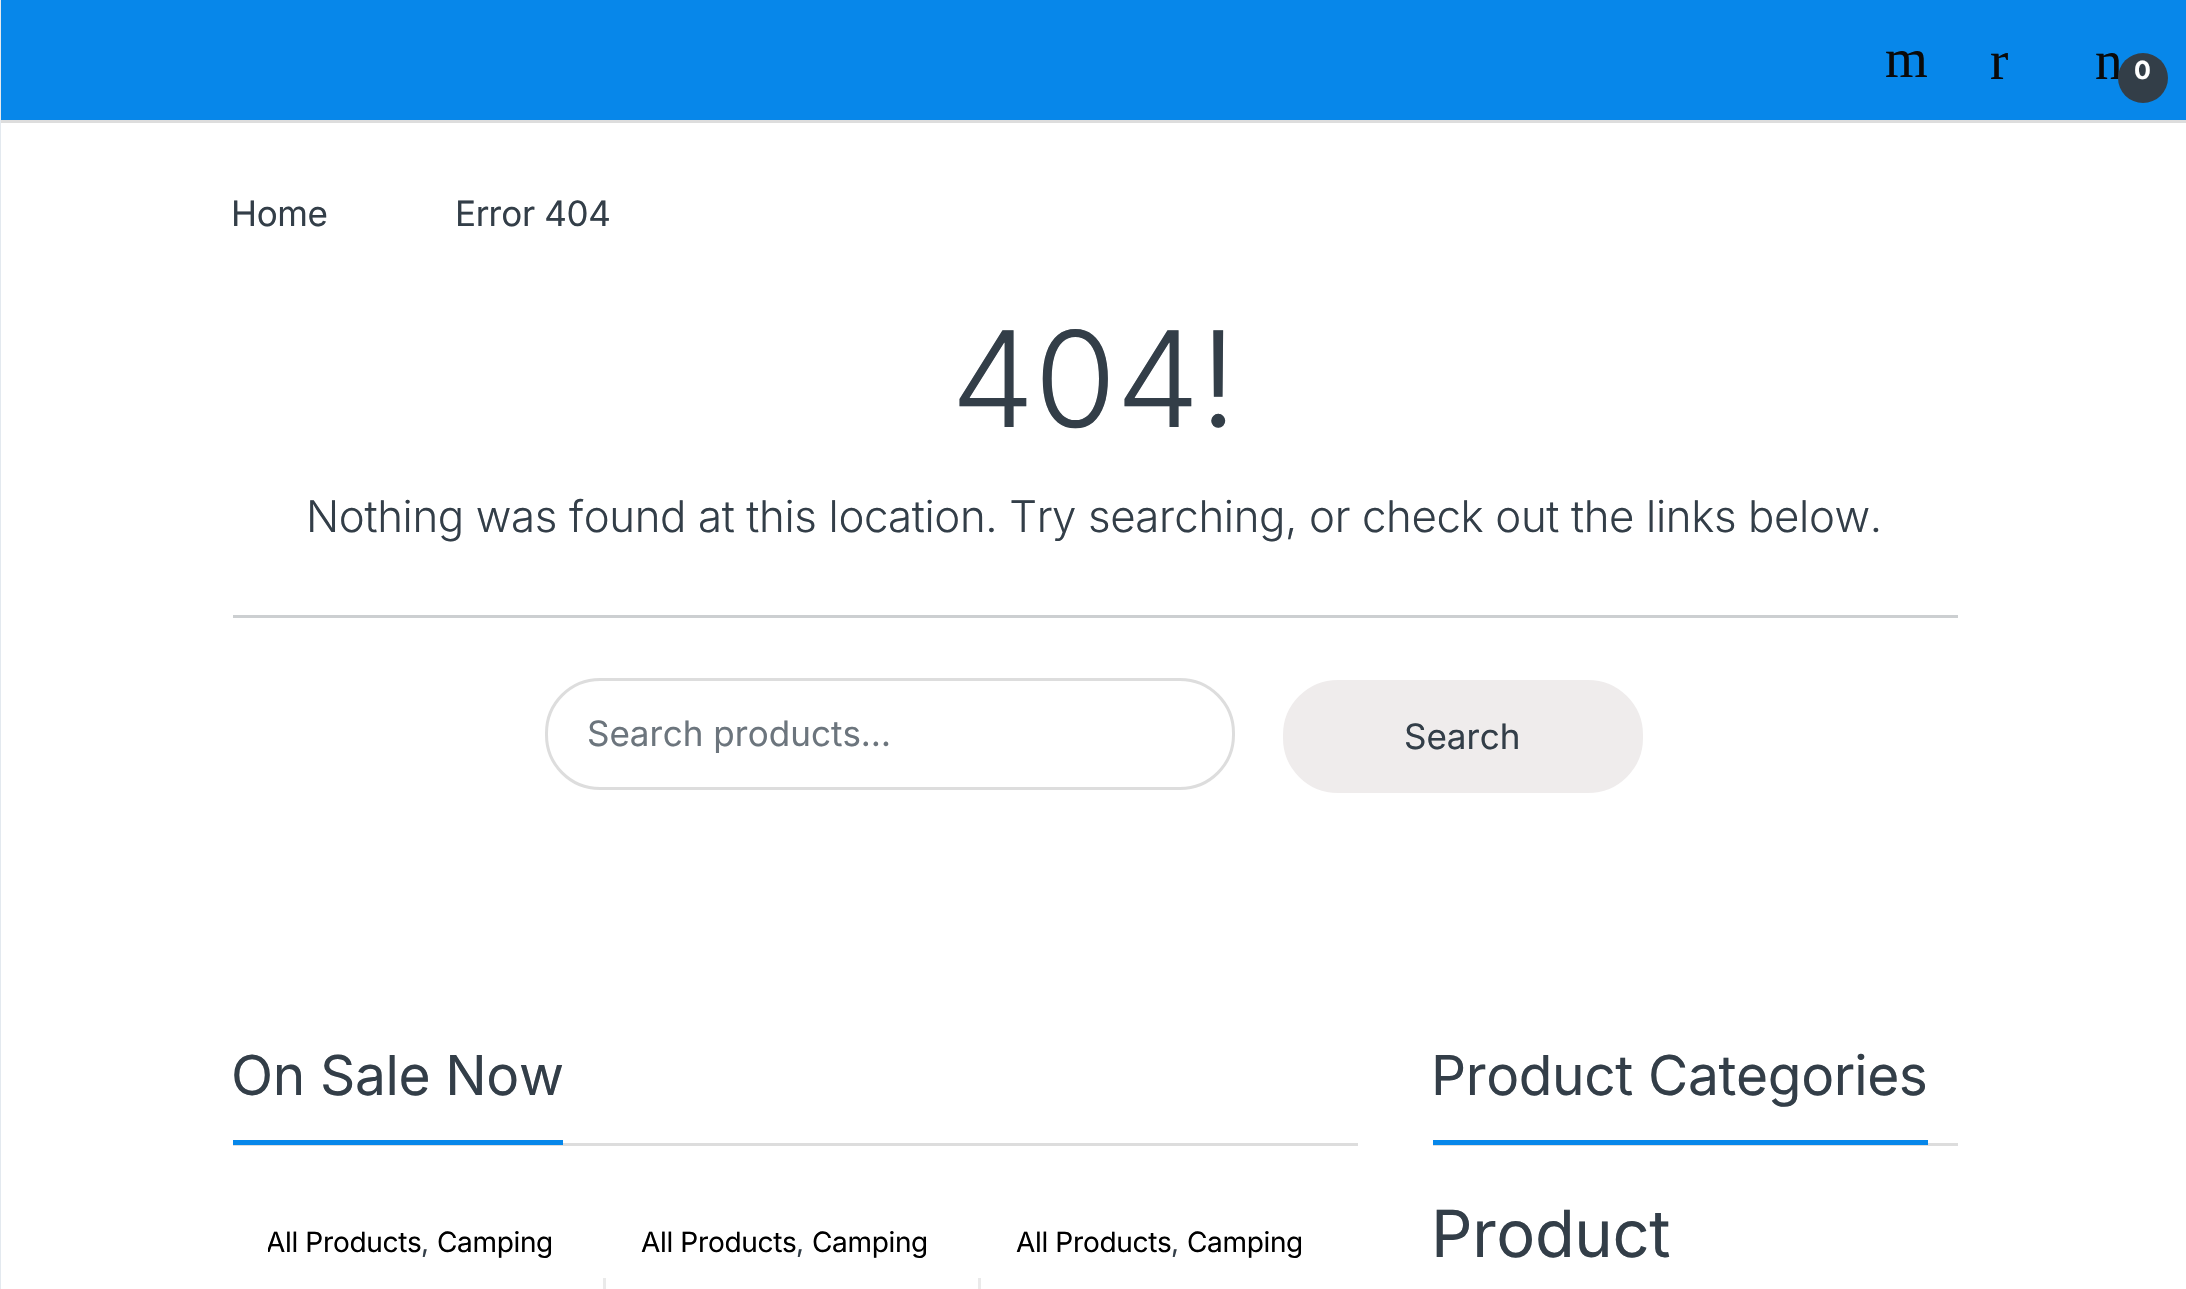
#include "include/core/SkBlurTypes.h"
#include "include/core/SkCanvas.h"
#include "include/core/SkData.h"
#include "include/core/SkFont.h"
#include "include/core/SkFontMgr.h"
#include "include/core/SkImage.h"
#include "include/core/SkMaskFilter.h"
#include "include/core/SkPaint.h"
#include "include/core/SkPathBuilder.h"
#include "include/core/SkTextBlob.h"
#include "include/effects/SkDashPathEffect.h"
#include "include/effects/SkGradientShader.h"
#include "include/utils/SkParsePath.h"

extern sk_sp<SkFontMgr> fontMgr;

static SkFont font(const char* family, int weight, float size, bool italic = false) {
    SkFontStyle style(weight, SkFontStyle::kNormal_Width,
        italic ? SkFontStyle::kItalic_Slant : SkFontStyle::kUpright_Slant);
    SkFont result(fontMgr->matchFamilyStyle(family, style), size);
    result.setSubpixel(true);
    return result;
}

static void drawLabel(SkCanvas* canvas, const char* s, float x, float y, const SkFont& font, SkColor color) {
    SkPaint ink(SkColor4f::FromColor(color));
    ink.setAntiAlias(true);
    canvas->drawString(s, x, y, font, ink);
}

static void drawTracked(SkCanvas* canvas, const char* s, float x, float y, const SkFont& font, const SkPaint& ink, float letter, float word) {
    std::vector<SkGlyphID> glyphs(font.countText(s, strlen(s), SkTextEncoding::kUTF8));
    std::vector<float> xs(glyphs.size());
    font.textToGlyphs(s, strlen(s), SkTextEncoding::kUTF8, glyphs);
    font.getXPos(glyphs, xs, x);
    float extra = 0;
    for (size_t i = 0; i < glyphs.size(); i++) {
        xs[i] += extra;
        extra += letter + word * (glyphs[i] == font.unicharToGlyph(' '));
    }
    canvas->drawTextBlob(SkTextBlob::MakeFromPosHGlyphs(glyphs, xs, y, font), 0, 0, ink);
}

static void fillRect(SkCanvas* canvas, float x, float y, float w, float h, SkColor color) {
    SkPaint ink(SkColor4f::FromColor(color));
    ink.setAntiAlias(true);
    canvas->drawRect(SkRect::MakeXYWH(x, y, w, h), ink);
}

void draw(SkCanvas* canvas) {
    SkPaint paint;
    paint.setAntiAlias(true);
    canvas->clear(0xFFFFFFFF);
    fillRect(canvas, 0, 120, 2186, 3, 0xFFDDDDDD);
    fillRect(canvas, 1, 0, 2185, 120, 0xFF0787EA);
    fillRect(canvas, 0, 0, 1, 1289, 0xFFE3E9EF);
    SkFont font1 = font("Liberation Serif", 400, 55);
    paint.setColor(0xFF0A0A0A);
    drawTracked(canvas, "m", 1885, 77, font1, paint, -0.35f, 0);
    drawTracked(canvas, "r", 1990, 79, font1, paint, -0.35f, 0);
    drawTracked(canvas, "n", 2095, 79, font1, paint, -0.35f, 0);
    paint.setColor(0xFF333E48);
    canvas->drawCircle(2143, 78, 25, paint);
    SkFont font2 = font("Inter", 700, 25);
    paint.setColor(0xFFFFFFFF);
    drawTracked(canvas, "0", 2134, 79, font2, paint, -0.35f, 0);
    SkFont font3 = font("Inter", 400, 35);
    paint.setColor(0xFF333E48);
    drawTracked(canvas, "Home", 231, 226, font3, paint, -0.35f, 0);
    drawTracked(canvas, "Error 404", 455, 226, font3, paint, -0.35f, 0);
    SkFont font4 = font("Inter", 300, 133);
    drawTracked(canvas, "404!", 951, 427, font4, paint, -0.35f, 0);
    SkFont font5 = font("Inter", 300, 43.75f);
    drawTracked(canvas, "Nothing was found at this location. Try searching, or check out the links below.", 306, 532, font5, paint, -0.35f, 0);
    fillRect(canvas, 233, 615, 1725, 3, 0xFFCCCFD1);
    paint.setStroke(true);
    paint.setStrokeWidth(3);
    paint.setColor(0xFFDDDDDD);
    canvas->drawRoundRect(SkRect::MakeXYWH(546.5f, 679.5f, 687, 109), 53.5f, 53.5f, paint);
    canvas->save();
    canvas->clipRect(SkRect::MakeXYWH(588, 710, 570, 43));
    drawLabel(canvas, "Search products…", 587, 746, font3, 0xFF6C757D);
    canvas->restore();
    paint.setStroke(false);
    paint.setColor(0xFFEFECEC);
    canvas->drawRoundRect(SkRect::MakeXYWH(1284.5f, 681.5f, 357, 110), 53.5f, 53.5f, paint);
    paint.setStroke(true);
    canvas->drawRoundRect(SkRect::MakeXYWH(1284.5f, 681.5f, 357, 110), 53.5f, 53.5f, paint);
    drawLabel(canvas, "Search", 1404, 749, font3, 0xFF333E48);
    fillRect(canvas, 233, 1143, 1125, 3, 0xFFDDDDDD);
    SkFont font6 = font("Inter", 400, 55);
    paint.setStroke(false);
    paint.setColor(0xFF333E48);
    drawTracked(canvas, "On Sale Now", 231, 1095, font6, paint, -0.35f, 0);
    fillRect(canvas, 233, 1140, 330, 5, 0xFF0787EA);
    canvas->save();
    canvas->clipRect(SkRect::MakeXYWH(268, 1230, 302, 30));
    SkFont font7 = font("Inter", 400, 28);
    paint.setColor(0xFF000000);
    drawTracked(canvas, "All Products", 266, 1252, font7, paint, -0.35f, 0);
    canvas->restore();
    paint.setColor(0xFF333E48);
    drawTracked(canvas, ",", 421, 1252, font7, paint, -0.35f, 0);
    paint.setColor(0xFF000000);
    drawTracked(canvas, "Camping", 437, 1252, font7, paint, -0.35f, 0);
    fillRect(canvas, 603, 1278, 3, 11, 0xFFEAEAEA);
    drawTracked(canvas, "All Products", 641, 1252, font7, paint, -0.35f, 0);
    paint.setColor(0xFF333E48);
    drawTracked(canvas, ",", 796, 1252, font7, paint, -0.35f, 0);
    paint.setColor(0xFF000000);
    drawTracked(canvas, "Camping", 812, 1252, font7, paint, -0.35f, 0);
    fillRect(canvas, 978, 1278, 3, 11, 0xFFEAEAEA);
    drawTracked(canvas, "All Products", 1016, 1252, font7, paint, -0.35f, 0);
    paint.setColor(0xFF333E48);
    drawTracked(canvas, ",", 1171, 1252, font7, paint, -0.35f, 0);
    paint.setColor(0xFF000000);
    drawTracked(canvas, "Camping", 1187, 1252, font7, paint, -0.35f, 0);
    fillRect(canvas, 1433, 1143, 525, 3, 0xFFDDDDDD);
    paint.setColor(0xFF333E48);
    drawTracked(canvas, "Product Categories", 1431, 1095, font6, paint, -0.35f, 0);
    fillRect(canvas, 1433, 1140, 495, 5, 0xFF0787EA);
    SkFont font8 = font("Inter", 400, 65);
    drawTracked(canvas, "Product", 1431, 1257, font8, paint, -0.35f, 0);
}
